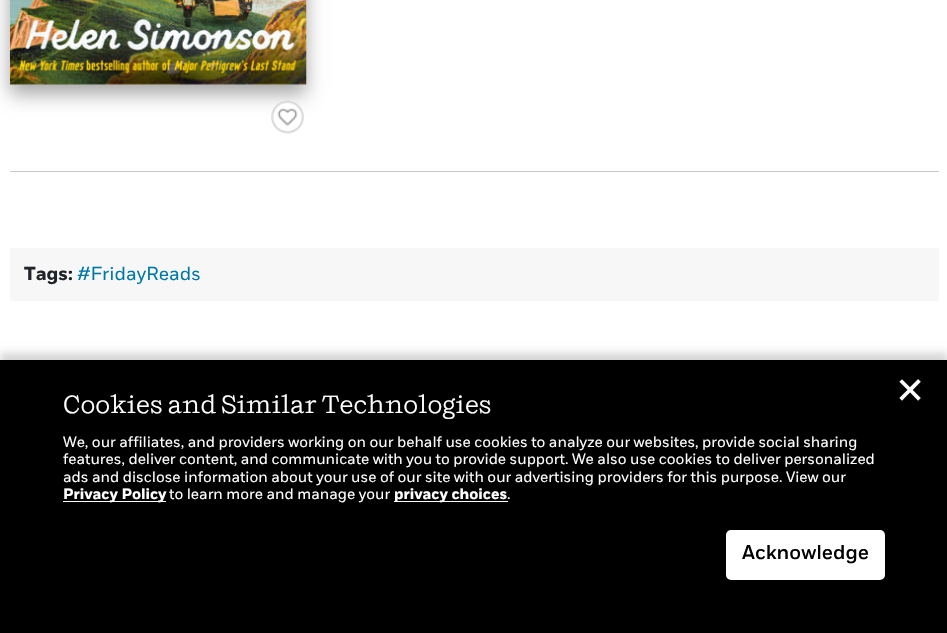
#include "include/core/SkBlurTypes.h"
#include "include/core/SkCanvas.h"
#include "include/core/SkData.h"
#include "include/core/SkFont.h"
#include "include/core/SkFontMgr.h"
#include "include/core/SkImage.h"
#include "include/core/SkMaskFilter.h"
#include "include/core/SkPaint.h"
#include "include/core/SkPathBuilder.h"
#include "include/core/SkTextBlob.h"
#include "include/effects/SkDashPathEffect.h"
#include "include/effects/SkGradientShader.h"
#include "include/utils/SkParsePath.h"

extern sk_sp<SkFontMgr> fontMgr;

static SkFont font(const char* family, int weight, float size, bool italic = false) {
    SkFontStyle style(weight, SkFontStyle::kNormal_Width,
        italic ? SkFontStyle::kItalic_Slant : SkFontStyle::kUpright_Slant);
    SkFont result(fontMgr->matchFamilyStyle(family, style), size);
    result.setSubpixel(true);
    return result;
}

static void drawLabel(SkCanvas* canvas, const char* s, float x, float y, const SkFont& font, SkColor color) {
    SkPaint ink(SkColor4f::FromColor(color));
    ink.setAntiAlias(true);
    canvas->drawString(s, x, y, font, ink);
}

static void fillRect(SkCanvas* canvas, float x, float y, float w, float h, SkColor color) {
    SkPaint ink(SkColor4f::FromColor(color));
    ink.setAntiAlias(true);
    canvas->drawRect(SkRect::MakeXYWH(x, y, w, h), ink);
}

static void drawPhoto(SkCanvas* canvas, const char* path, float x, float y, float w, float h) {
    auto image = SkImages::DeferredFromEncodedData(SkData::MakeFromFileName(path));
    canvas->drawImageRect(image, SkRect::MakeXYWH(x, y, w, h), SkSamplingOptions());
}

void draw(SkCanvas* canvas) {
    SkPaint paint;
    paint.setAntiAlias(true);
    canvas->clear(0xFFFFFFFF);
    paint.setColor(0x59000000);
    paint.setMaskFilter(SkMaskFilter::MakeBlur(kNormal_SkBlurStyle, 9));
    canvas->drawRect(SkRect::MakeXYWH(10, -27, 296, 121), paint);
    paint.setMaskFilter(nullptr);
    drawPhoto(canvas, "assets/img1.png", 10, 0, 297, 85);
    drawPhoto(canvas, "assets/img2.png", 271, 100, 33, 34);
    fillRect(canvas, 10, 171, 929, 1, 0xFFC8C9CA);
    fillRect(canvas, 10, 248, 929, 53, 0xFFF7F7F7);
    SkFont font1 = font("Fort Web", 700, 18.75f);
    drawLabel(canvas, "Tags:", 24, 280, font1, 0xFF212529);
    SkFont font2 = font("Fort Web", 400, 18.75f);
    drawLabel(canvas, "#FridayReads", 77, 280, font2, 0xFF0078A6);
    paint.setColor(0x29000000);
    paint.setMaskFilter(SkMaskFilter::MakeBlur(kNormal_SkBlurStyle, 4));
    canvas->drawRect(SkRect::MakeXYWH(0, 353, 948, 273), paint);
    paint.setMaskFilter(nullptr);
    fillRect(canvas, 0, 360, 947, 273, 0xFF000000);
    SkFont font3 = font("DejaVu Sans", 400, 36);
    drawLabel(canvas, "✕", 895, 403, font3, 0xFFFFFFFF);
    SkFont font4 = font("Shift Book", 400, 25);
    drawLabel(canvas, "Cookies and Similar Technologies", 63, 413, font4, 0xFFFFFFFF);
    SkFont font5 = font("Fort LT", 400, 15);
    drawLabel(canvas, "We, our affiliates, and providers working on our behalf use cookies to analyze our websites, provide social sharing", 63, 447, font5, 0xFFFFFFFF);
    drawLabel(canvas, "features, deliver content, and communicate with you to provide support. We also use cookies to deliver personalized", 63, 464, font5, 0xFFFFFFFF);
    drawLabel(canvas, "ads and disclose information about your use of our site with our advertising providers for this purpose. View our", 63, 482, font5, 0xFFFFFFFF);
    fillRect(canvas, 63, 501, 103, 1, 0xFFFFFFFF);
    SkFont font6 = font("Fort LT", 700, 15);
    drawLabel(canvas, "Privacy Policy", 63, 499, font6, 0xFFFFFFFF);
    drawLabel(canvas, "to learn more and manage your", 169, 499, font5, 0xFFFFFFFF);
    fillRect(canvas, 394, 501, 114, 1, 0xFFFFFFFF);
    drawLabel(canvas, "privacy choices", 394, 499, font6, 0xFFFFFFFF);
    drawLabel(canvas, ".", 507, 499, font5, 0xFFFFFFFF);
    paint.setColor(0xFFFFFFFF);
    canvas->drawRoundRect(SkRect::MakeXYWH(727.5f, 531.5f, 156, 47), 3.5f, 3.5f, paint);
    paint.setStroke(true);
    paint.setStrokeWidth(3);
    canvas->drawRoundRect(SkRect::MakeXYWH(727.5f, 531.5f, 156, 47), 3.5f, 3.5f, paint);
    SkFont font7 = font("Fort LT", 500, 20);
    drawLabel(canvas, "Acknowledge", 742, 559, font7, 0xFF000000);
}
